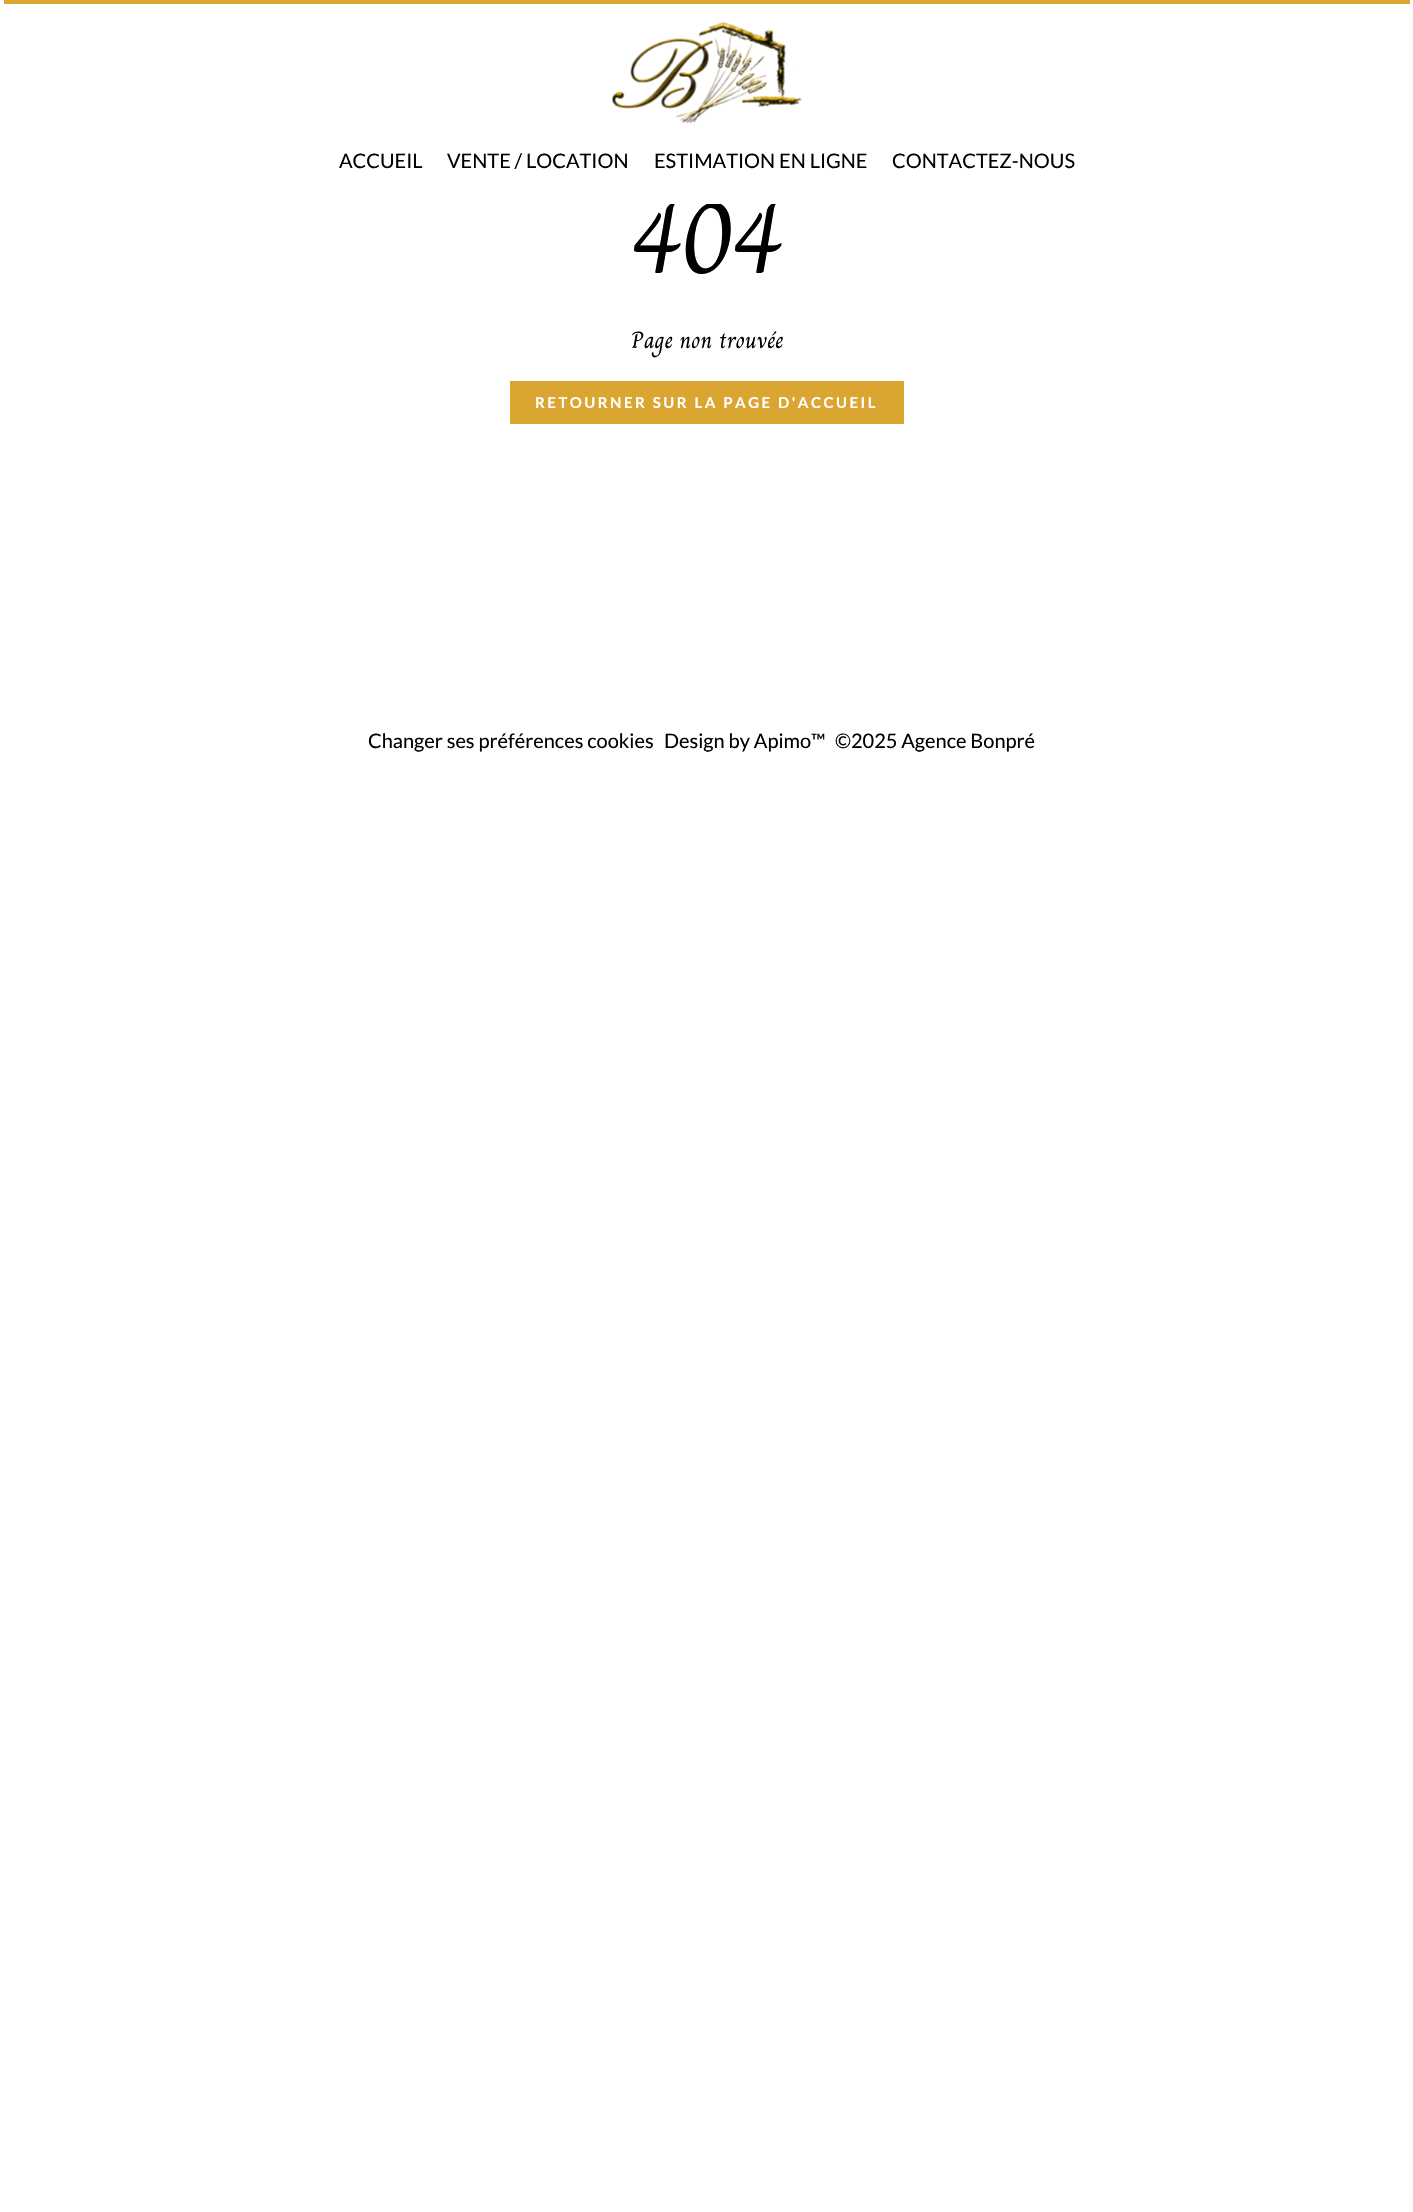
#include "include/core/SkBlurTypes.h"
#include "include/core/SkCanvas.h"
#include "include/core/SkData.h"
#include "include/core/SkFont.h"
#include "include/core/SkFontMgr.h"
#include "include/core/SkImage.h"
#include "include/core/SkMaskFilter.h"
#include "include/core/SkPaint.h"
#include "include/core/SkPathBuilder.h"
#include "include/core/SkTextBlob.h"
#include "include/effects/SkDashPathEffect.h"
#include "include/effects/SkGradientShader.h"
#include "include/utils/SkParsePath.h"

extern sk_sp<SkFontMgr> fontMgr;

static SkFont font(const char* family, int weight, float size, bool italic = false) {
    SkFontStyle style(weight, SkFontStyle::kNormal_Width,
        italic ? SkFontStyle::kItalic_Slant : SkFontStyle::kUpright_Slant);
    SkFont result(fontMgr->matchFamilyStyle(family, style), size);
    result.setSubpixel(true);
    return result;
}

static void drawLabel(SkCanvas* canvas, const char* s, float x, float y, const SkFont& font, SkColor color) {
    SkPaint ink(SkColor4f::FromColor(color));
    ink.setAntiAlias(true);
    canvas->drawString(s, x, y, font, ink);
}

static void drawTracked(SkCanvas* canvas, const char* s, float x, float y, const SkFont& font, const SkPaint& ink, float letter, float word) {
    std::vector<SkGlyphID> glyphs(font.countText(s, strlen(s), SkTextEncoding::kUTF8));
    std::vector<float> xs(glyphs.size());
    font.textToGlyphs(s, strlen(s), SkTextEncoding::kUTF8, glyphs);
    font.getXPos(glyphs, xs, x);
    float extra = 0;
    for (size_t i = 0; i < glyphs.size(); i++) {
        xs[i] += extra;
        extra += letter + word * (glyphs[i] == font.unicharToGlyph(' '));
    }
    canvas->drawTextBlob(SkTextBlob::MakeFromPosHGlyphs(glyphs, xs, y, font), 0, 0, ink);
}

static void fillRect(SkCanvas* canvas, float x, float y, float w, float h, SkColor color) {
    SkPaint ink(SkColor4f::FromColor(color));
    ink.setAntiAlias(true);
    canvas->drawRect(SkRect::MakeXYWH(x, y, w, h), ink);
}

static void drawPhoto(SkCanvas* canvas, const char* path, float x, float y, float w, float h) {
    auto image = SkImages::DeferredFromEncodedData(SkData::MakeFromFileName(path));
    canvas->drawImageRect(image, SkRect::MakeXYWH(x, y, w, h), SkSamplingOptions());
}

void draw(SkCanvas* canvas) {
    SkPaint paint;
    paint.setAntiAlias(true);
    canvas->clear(0xFFFFFFFF);
    fillRect(canvas, 4, 0, 1406, 4, 0xFFDBA531);
    drawPhoto(canvas, "assets/img1.png", 612, 22, 190, 101);
    SkFont font1 = font("Lato", 400, 20);
    drawLabel(canvas, "ACCUEIL", 339, 168, font1, 0xFF000000);
    drawLabel(canvas, "VENTE / LOCATION", 447, 168, font1, 0xFF000000);
    drawLabel(canvas, "ESTIMATION EN LIGNE", 654, 168, font1, 0xFF000000);
    drawLabel(canvas, "CONTACTEZ-NOUS", 892, 168, font1, 0xFF000000);
    canvas->save();
    canvas->clipRect(SkRect::MakeXYWH(0, 204, 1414, 220));
    SkFont font2 = font("Charm", 400, 100);
    drawLabel(canvas, "404", 632, 273, font2, 0xFF000000);
    canvas->restore();
    SkFont font3 = font("Charm", 400, 23.5f);
    drawLabel(canvas, "Page non trouvée", 631, 348, font3, 0xFF000000);
    fillRect(canvas, 510, 381, 394, 43, 0xFFDBA531);
    SkFont font4 = font("Lato", 700, 15);
    paint.setColor(0xFFFFFFFF);
    drawTracked(canvas, "RETOURNER SUR LA PAGE D'ACCUEIL", 535, 408, font4, paint, 2.5f, 0);
    drawLabel(canvas, "Changer ses préférences cookies", 368, 748, font1, 0xFF000000);
    drawLabel(canvas, "Design by Apimo™", 664, 748, font1, 0xFF000000);
    drawLabel(canvas, "©2025 Agence Bonpré", 835, 748, font1, 0xFF000000);
}
